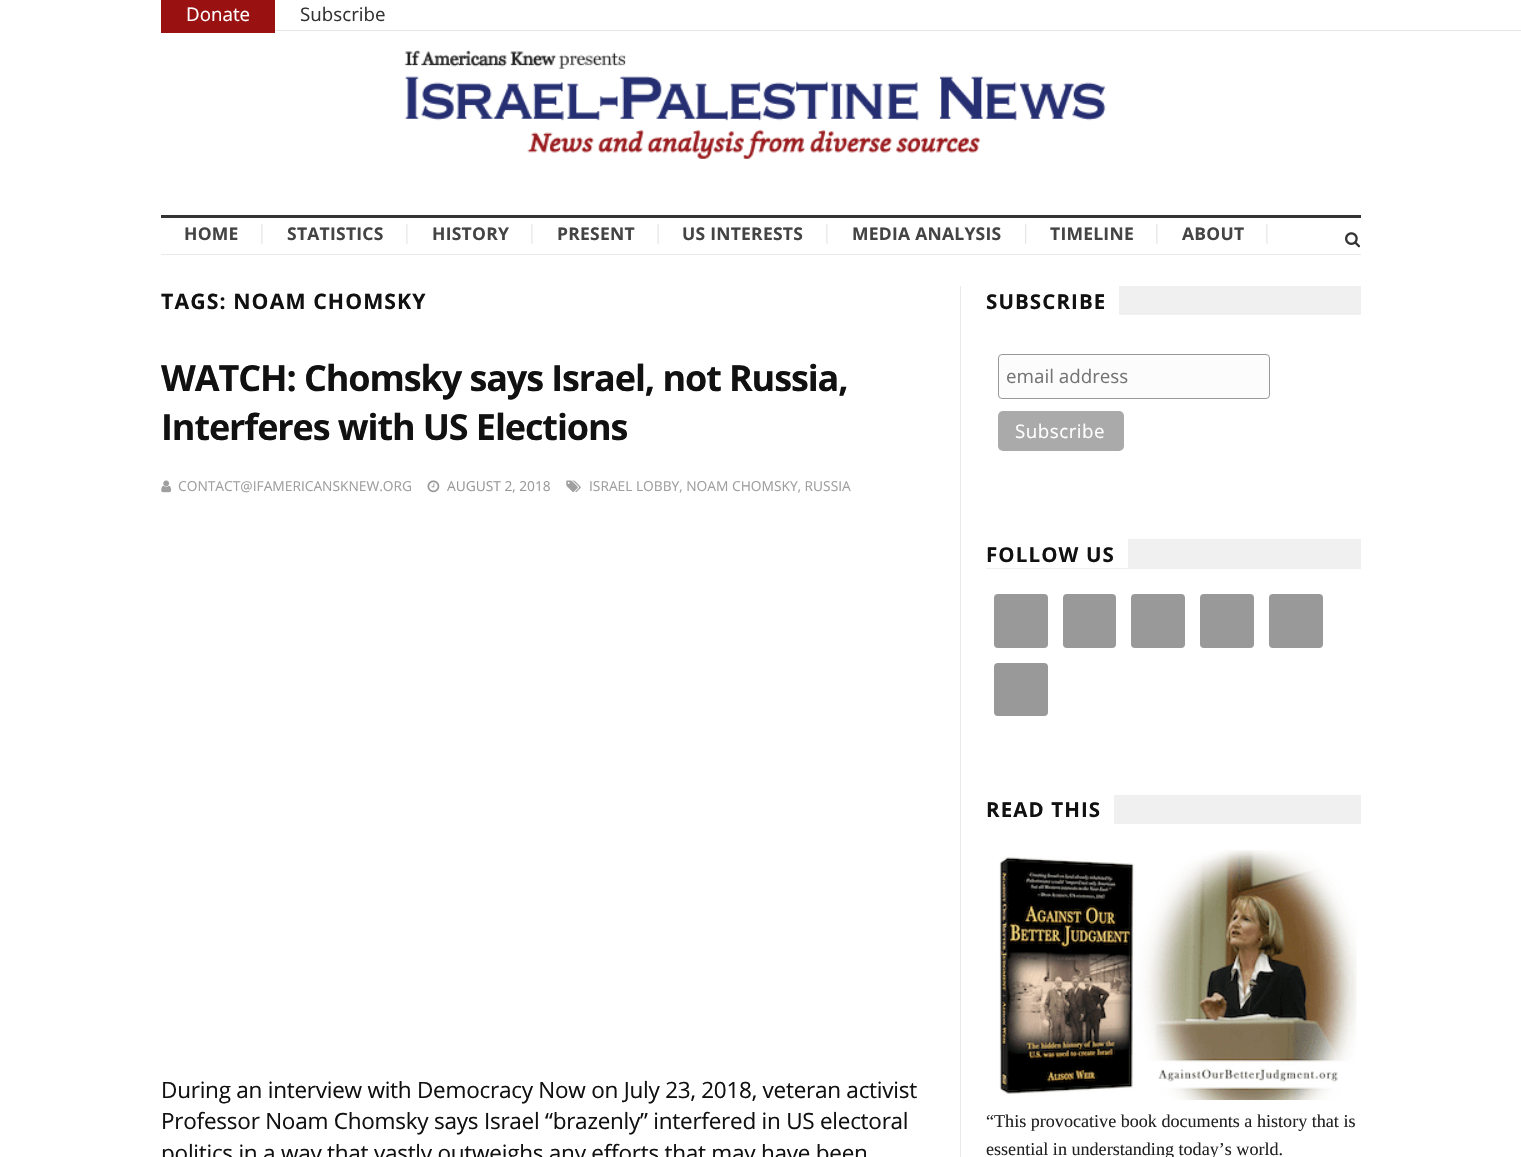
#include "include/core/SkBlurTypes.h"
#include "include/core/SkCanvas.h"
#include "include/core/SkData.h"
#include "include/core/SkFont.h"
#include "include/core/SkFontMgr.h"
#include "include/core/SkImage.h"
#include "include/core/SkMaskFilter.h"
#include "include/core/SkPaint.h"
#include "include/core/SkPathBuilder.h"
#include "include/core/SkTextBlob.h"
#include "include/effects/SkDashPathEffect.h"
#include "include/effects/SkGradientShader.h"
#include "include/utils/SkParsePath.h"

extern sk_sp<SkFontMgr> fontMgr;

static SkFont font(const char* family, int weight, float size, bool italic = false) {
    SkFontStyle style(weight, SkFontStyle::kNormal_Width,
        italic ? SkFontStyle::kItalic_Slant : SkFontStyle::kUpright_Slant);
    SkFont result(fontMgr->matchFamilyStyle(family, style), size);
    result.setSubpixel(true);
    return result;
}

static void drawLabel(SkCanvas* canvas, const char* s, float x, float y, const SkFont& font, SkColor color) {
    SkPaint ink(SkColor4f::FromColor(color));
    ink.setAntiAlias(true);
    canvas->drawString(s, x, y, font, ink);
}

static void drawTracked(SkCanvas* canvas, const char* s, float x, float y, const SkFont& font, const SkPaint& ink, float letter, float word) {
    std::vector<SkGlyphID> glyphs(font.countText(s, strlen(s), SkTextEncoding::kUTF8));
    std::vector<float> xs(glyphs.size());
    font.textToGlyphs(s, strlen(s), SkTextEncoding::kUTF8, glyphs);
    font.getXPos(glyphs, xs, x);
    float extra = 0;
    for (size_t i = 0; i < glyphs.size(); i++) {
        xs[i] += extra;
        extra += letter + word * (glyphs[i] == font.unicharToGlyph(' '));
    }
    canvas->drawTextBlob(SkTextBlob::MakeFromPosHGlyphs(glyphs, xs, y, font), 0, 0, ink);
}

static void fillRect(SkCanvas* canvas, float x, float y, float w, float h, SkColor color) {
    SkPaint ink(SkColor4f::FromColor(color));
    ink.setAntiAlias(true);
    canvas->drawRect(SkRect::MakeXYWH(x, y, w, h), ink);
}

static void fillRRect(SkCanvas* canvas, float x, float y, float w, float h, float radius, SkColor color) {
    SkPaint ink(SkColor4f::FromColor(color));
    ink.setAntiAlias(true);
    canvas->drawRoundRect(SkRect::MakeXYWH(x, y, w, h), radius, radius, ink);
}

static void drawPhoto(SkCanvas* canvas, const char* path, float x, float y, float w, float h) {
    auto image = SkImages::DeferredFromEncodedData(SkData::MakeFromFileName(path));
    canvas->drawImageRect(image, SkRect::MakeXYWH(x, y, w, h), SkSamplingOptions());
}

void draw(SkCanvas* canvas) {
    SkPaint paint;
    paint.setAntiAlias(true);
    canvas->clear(0xFFFFFFFF);
    fillRect(canvas, 275, 30, 1246, 1, 0xFFE6E6E6);
    fillRect(canvas, 161, 0, 114, 33, 0xFF991111);
    SkFont font1 = font("Open Sans", 400, 18.75f);
    drawLabel(canvas, "Donate", 186, 21, font1, 0xFFFFFFFF);
    drawLabel(canvas, "Subscribe", 300, 21, font1, 0xFF333333);
    drawPhoto(canvas, "assets/img1.png", 404, 50, 702, 109);
    fillRect(canvas, 161, 215, 1200, 3, 0xFF333333);
    fillRect(canvas, 161, 254, 1200, 1, 0xFFE9E9E9);
    drawPhoto(canvas, "assets/img2.png", 261, 224, 2, 20);
    SkFont font2 = font("Open Sans", 700, 17.5f);
    paint.setColor(0xFF444444);
    drawTracked(canvas, "HOME", 184, 240, font2, paint, 0.25f, 0);
    drawPhoto(canvas, "assets/img2.png", 406, 224, 2, 20);
    drawTracked(canvas, "STATISTICS", 287, 240, font2, paint, 0.25f, 0);
    drawPhoto(canvas, "assets/img2.png", 531, 224, 2, 20);
    drawTracked(canvas, "HISTORY", 432, 240, font2, paint, 0.25f, 0);
    drawPhoto(canvas, "assets/img3.png", 657, 224, 2, 20);
    drawTracked(canvas, "PRESENT", 557, 240, font2, paint, 0.25f, 0);
    drawPhoto(canvas, "assets/img2.png", 826, 224, 2, 20);
    drawTracked(canvas, "US INTERESTS", 682, 240, font2, paint, 0.25f, 0);
    drawPhoto(canvas, "assets/img4.png", 1025, 223, 2, 21);
    drawTracked(canvas, "MEDIA ANALYSIS", 852, 240, font2, paint, 0.25f, 0);
    drawPhoto(canvas, "assets/img2.png", 1156, 224, 2, 20);
    drawTracked(canvas, "TIMELINE", 1050, 240, font2, paint, 0.25f, 0);
    drawPhoto(canvas, "assets/img2.png", 1266, 224, 2, 20);
    drawTracked(canvas, "ABOUT", 1182, 240, font2, paint, 0.25f, 0);
    drawPhoto(canvas, "assets/img5.png", 1345, 232, 16, 16);
    SkFont font3 = font("Open Sans", 700, 21.25f);
    paint.setColor(0xFF111111);
    drawTracked(canvas, "TAGS: NOAM CHOMSKY", 161, 309, font3, paint, 1.1f, 0);
    SkFont font4 = font("Open Sans", 700, 36);
    drawTracked(canvas, "WATCH: Chomsky says Israel, not Russia,", 161, 391, font4, paint, -1.1f, 0);
    drawTracked(canvas, "Interferes with US Elections", 161, 440, font4, paint, -1.1f, 0);
    drawPhoto(canvas, "assets/img6.png", 161, 480, 10, 13);
    SkFont font5 = font("Open Sans", 400, 13.75f);
    drawLabel(canvas, "CONTACT@IFAMERICANSKNEW.ORG", 178, 491, font5, 0xFF9F9F9F);
    drawPhoto(canvas, "assets/img7.png", 427, 480, 13, 13);
    drawLabel(canvas, "AUGUST 2, 2018", 447, 491, font5, 0xFF999999);
    drawPhoto(canvas, "assets/img8.png", 566, 480, 15, 12);
    drawLabel(canvas, "ISRAEL LOBBY, NOAM CHOMSKY, RUSSIA", 589, 491, font5, 0xFF9F9F9F);
    SkFont font6 = font("Open Sans", 400, 22.5f);
    drawTracked(canvas, "During an interview with Democracy Now on July 23, 2018, veteran activist", 161, 1098, font6, paint, -0.25f, 0);
    drawTracked(canvas, "Professor Noam Chomsky says Israel “brazenly” interfered in US electoral", 161, 1129, font6, paint, -0.25f, 0);
    drawTracked(canvas, "politics in a way that vastly outweighs any efforts that may have been", 161, 1161, font6, paint, -0.25f, 0);
    fillRect(canvas, 960, 286, 1, 871, 0xFFE9E9E9);
    fillRect(canvas, 1119, 286, 242, 29, 0xFFF0F0F0);
    SkFont font7 = font("Open Sans", 700, 20.5f);
    drawTracked(canvas, "SUBSCRIBE", 986, 309, font7, paint, 1.1f, 0);
    paint.setColor(0xFFFCFCFC);
    canvas->drawRoundRect(SkRect::MakeXYWH(998.5f, 354.5f, 271, 44), 3.5f, 3.5f, paint);
    paint.setStroke(true);
    paint.setStrokeWidth(1);
    paint.setColor(0xFF999999);
    canvas->drawRoundRect(SkRect::MakeXYWH(998.5f, 354.5f, 271, 44), 3.5f, 3.5f, paint);
    drawLabel(canvas, "email address", 1006, 383, font1, 0xFF757575);
    fillRRect(canvas, 998, 411, 126, 40, 5, 0xFFAAAAAA);
    paint.setStroke(false);
    paint.setColor(0xFFFFFFFF);
    drawTracked(canvas, "Subscribe", 1015, 438, font1, paint, 0.5f, 0);
    fillRect(canvas, 986, 539, 375, 30, 0xFFF0F0F0);
    fillRect(canvas, 986, 539, 142, 29, 0xFFFFFFFF);
    paint.setColor(0xFF111111);
    drawTracked(canvas, "FOLLOW US", 986, 562, font7, paint, 1.1f, 0);
    fillRRect(canvas, 994, 594, 54, 54, 4, 0xFF999999);
    fillRRect(canvas, 1063, 594, 53, 54, 4, 0xFF999999);
    fillRRect(canvas, 1131, 594, 54, 54, 4, 0xFF999999);
    fillRRect(canvas, 1200, 594, 54, 54, 4, 0xFF999999);
    fillRRect(canvas, 1269, 594, 54, 54, 4, 0xFF999999);
    fillRRect(canvas, 994, 663, 54, 53, 4, 0xFF999999);
    fillRect(canvas, 1114, 795, 247, 29, 0xFFF0F0F0);
    drawTracked(canvas, "READ THIS", 986, 817, font7, paint, 1.1f, 0);
    drawPhoto(canvas, "assets/img9.png", 999, 850, 358, 250);
    SkFont font8 = font("Liberation Serif", 400, 18.1f);
    drawLabel(canvas, "“This provocative book documents a history that is", 986, 1127, font8, 0xFF222222);
    drawLabel(canvas, "essential in understanding today’s world.", 986, 1155, font8, 0xFF222222);
}
